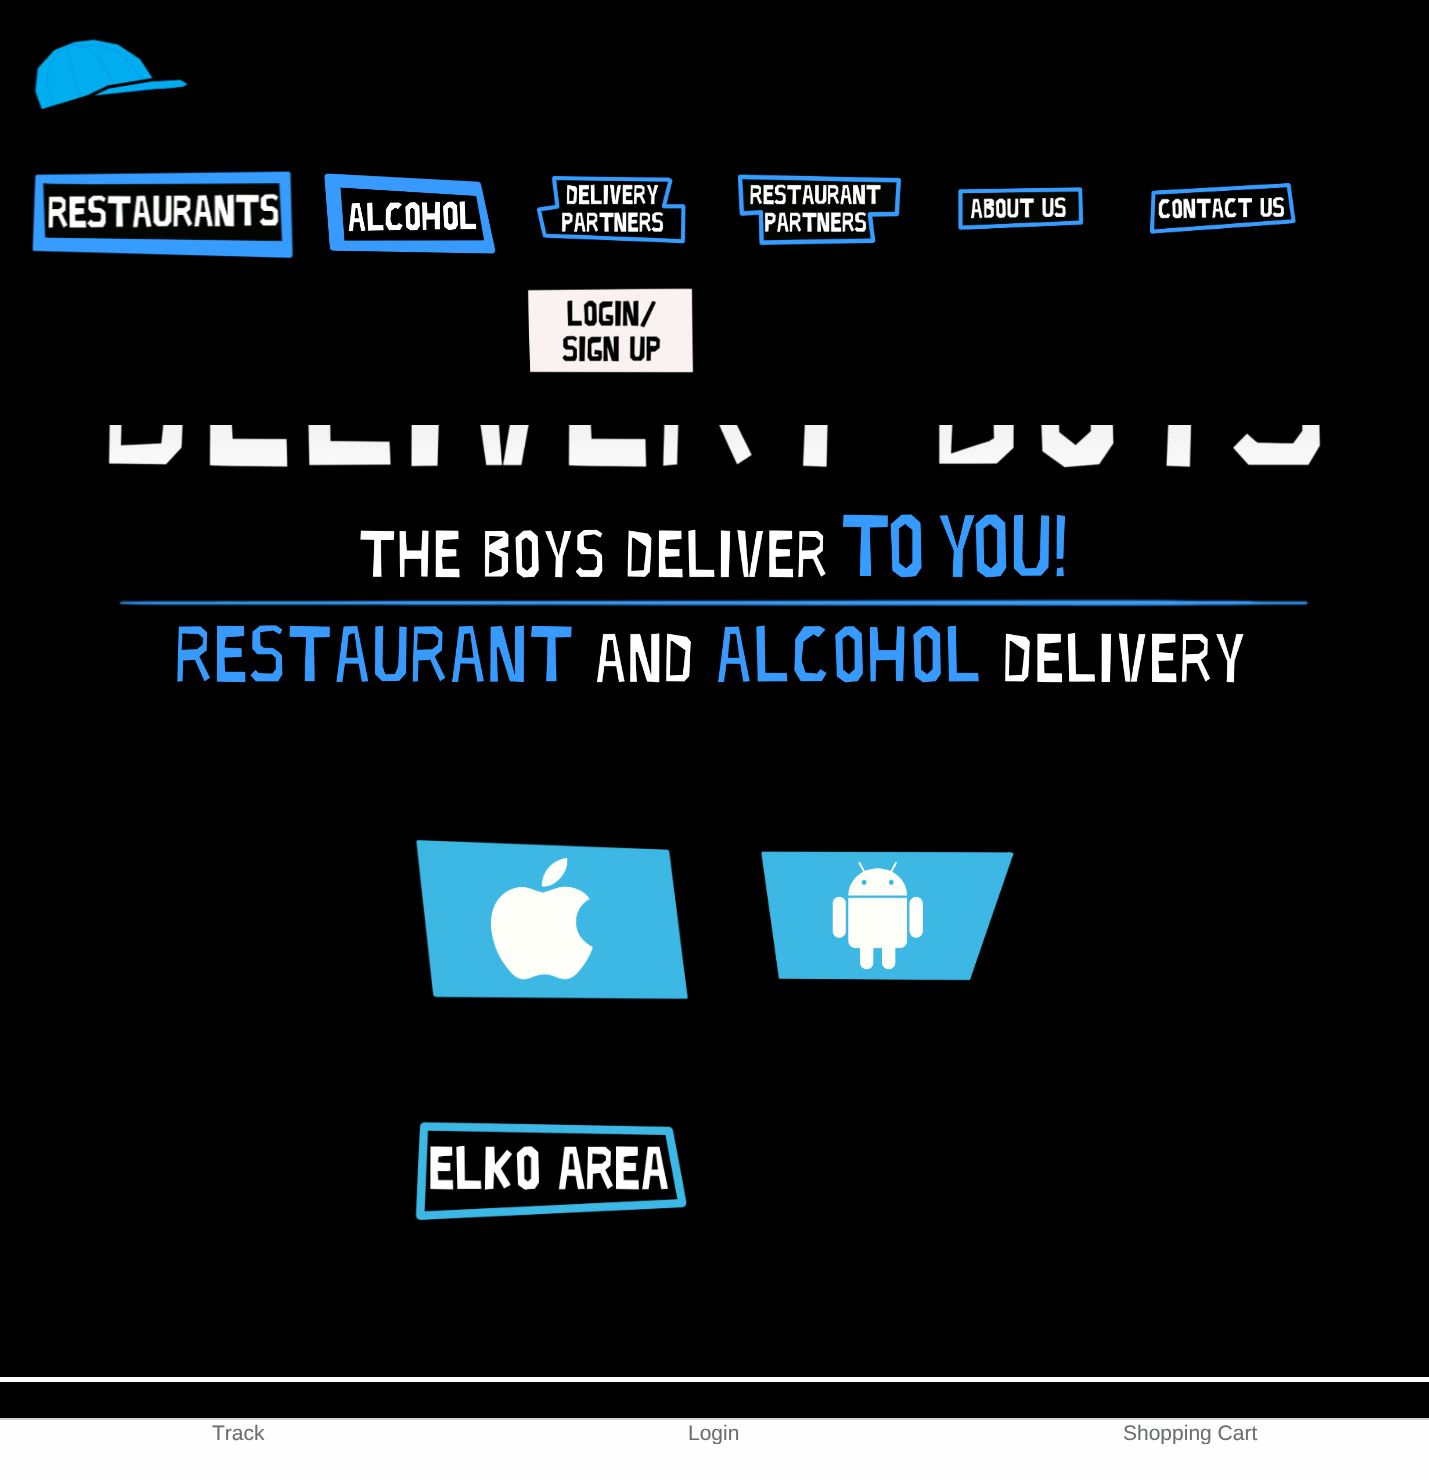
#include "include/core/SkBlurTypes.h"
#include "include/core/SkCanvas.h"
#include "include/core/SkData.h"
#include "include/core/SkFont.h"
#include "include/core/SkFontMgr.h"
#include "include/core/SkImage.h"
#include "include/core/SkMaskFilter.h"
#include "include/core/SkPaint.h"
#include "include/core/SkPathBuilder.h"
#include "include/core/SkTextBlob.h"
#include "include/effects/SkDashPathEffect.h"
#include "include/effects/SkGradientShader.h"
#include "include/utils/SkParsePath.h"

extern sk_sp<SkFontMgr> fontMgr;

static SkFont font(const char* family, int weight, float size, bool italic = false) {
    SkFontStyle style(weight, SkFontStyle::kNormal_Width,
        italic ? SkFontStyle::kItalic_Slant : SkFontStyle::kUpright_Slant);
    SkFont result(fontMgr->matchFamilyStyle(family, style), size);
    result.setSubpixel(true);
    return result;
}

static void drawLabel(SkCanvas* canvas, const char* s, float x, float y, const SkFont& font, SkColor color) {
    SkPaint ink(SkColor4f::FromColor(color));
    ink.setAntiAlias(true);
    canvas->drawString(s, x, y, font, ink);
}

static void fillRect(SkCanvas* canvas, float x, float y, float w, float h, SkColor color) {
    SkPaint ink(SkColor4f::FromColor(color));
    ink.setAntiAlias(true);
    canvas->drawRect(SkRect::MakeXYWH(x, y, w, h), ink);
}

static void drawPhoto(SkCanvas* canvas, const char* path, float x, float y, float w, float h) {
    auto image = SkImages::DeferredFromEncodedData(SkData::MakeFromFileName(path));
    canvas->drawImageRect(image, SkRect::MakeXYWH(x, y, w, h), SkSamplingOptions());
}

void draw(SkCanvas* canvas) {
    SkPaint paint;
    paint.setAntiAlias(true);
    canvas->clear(0xFF000000);
    drawPhoto(canvas, "assets/img9.png", 108, 425, 1213, 258);
    paint.setColor(0x1A000000);
    paint.setMaskFilter(SkMaskFilter::MakeBlur(kNormal_SkBlurStyle, 44));
    canvas->drawRect(SkRect::MakeXYWH(35, 70, 1360, 355), paint);
    paint.setMaskFilter(nullptr);
    drawPhoto(canvas, "assets/img1.png", 34, 39, 154, 71);
    drawPhoto(canvas, "assets/img2.png", 32, 170, 262, 89);
    drawPhoto(canvas, "assets/img3.png", 324, 173, 172, 81);
    drawPhoto(canvas, "assets/img4.png", 536, 175, 150, 69);
    drawPhoto(canvas, "assets/img5.png", 737, 174, 165, 72);
    drawPhoto(canvas, "assets/img6.png", 958, 187, 126, 43);
    drawPhoto(canvas, "assets/img7.png", 1149, 182, 147, 52);
    drawPhoto(canvas, "assets/img8.png", 527, 288, 167, 85);
    drawPhoto(canvas, "assets/img10.png", 415, 840, 273, 160);
    drawPhoto(canvas, "assets/img11.png", 761, 851, 253, 130);
    drawPhoto(canvas, "assets/img12.png", 415, 1121, 272, 100);
    fillRect(canvas, 0, 1377, 1429, 5, 0xFFFFFFFF);
    fillRect(canvas, 0, 1420, 1429, 60, 0xFFFEFEFE);
    fillRect(canvas, 0, 1418, 1429, 2, 0xFFD0D2D3);
    SkFont font1 = font("Liberation Sans", 400, 21);
    drawLabel(canvas, "Track", 212, 1440, font1, 0xFF6C6E70);
    canvas->save();
    canvas->clipRect(SkRect::MakeXYWH(487, 1423, 455, 21));
    drawLabel(canvas, "Login", 688, 1440, font1, 0xFF6C6E70);
    canvas->restore();
    canvas->save();
    canvas->clipRect(SkRect::MakeXYWH(952, 1423, 476, 21));
    drawLabel(canvas, "Shopping Cart", 1123, 1440, font1, 0xFF6C6E70);
    canvas->restore();
}
